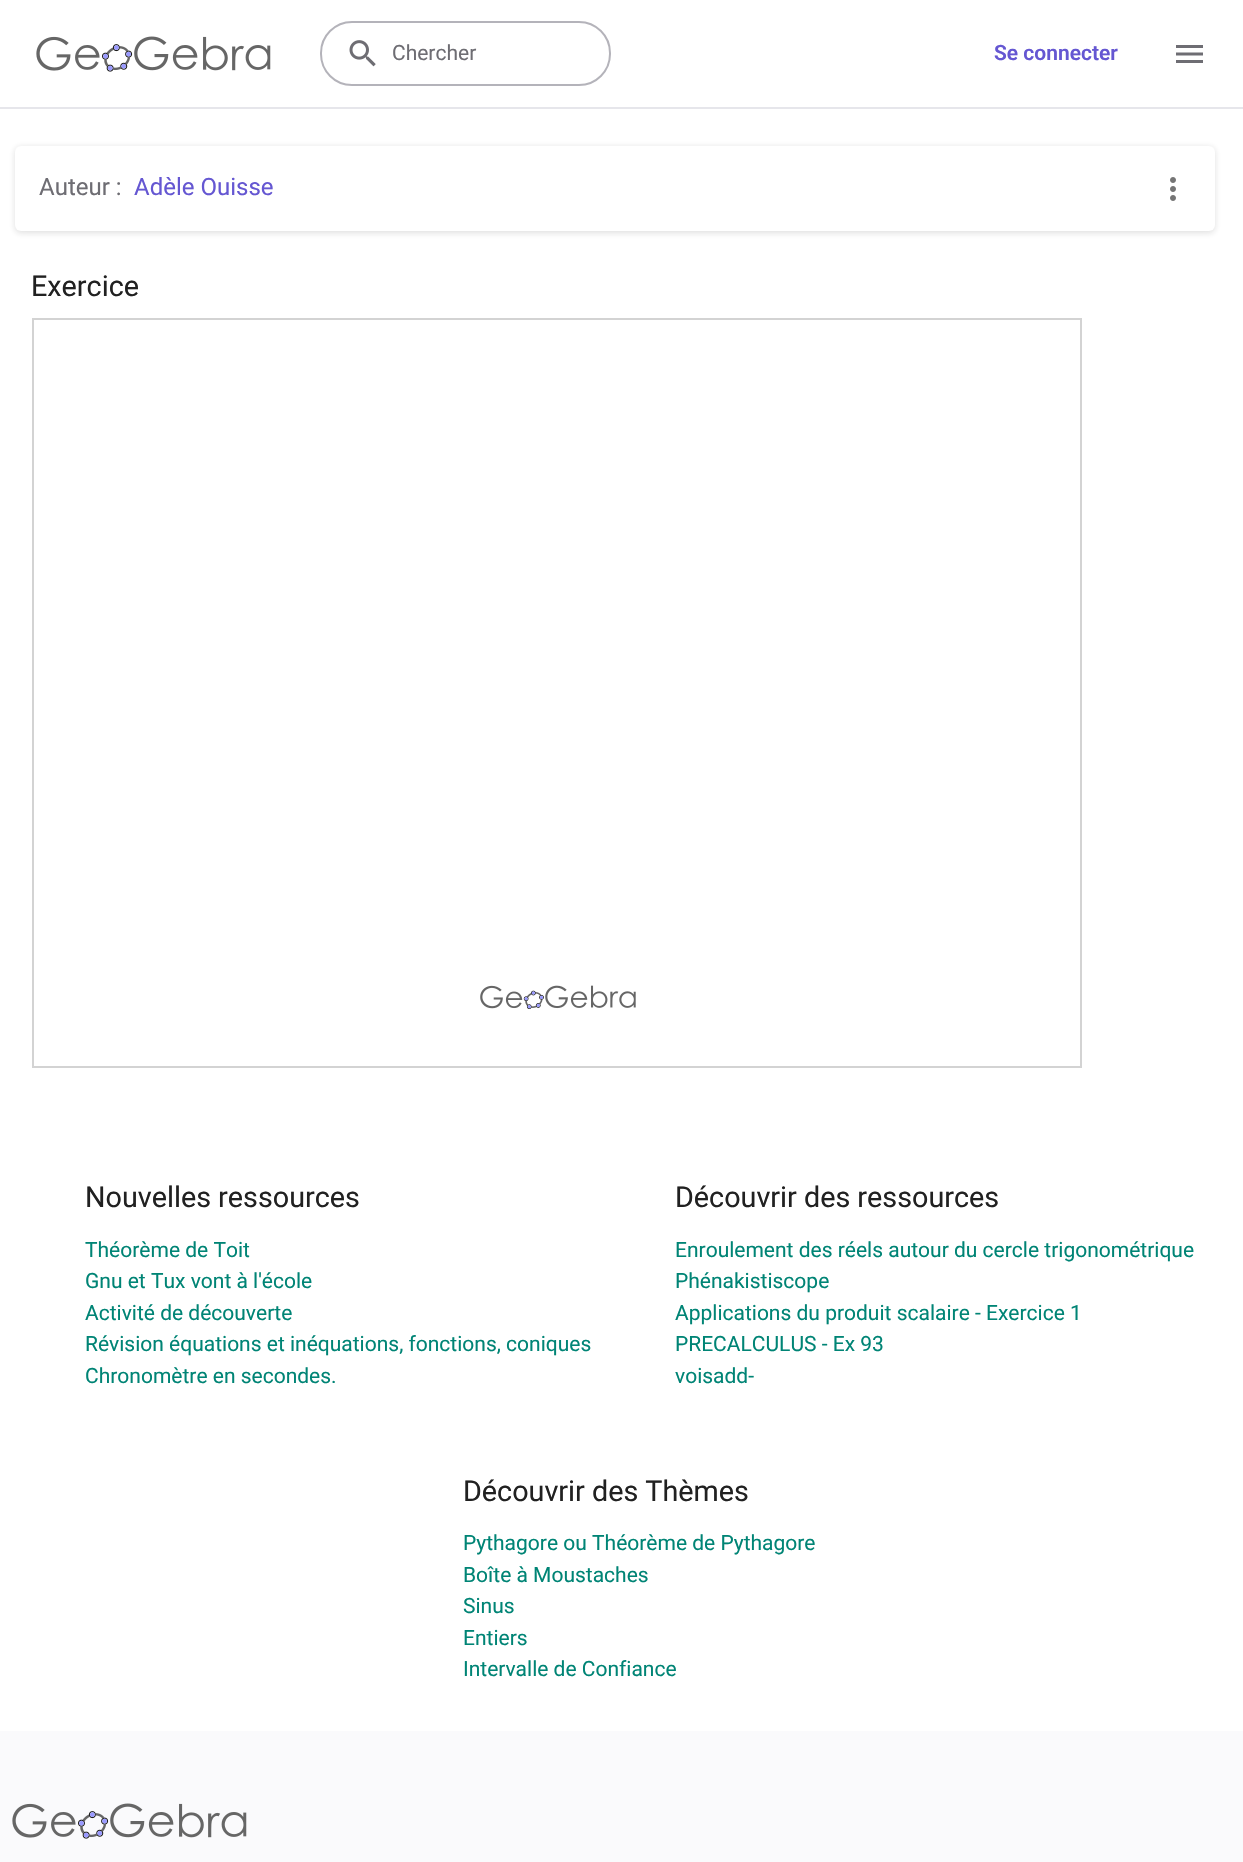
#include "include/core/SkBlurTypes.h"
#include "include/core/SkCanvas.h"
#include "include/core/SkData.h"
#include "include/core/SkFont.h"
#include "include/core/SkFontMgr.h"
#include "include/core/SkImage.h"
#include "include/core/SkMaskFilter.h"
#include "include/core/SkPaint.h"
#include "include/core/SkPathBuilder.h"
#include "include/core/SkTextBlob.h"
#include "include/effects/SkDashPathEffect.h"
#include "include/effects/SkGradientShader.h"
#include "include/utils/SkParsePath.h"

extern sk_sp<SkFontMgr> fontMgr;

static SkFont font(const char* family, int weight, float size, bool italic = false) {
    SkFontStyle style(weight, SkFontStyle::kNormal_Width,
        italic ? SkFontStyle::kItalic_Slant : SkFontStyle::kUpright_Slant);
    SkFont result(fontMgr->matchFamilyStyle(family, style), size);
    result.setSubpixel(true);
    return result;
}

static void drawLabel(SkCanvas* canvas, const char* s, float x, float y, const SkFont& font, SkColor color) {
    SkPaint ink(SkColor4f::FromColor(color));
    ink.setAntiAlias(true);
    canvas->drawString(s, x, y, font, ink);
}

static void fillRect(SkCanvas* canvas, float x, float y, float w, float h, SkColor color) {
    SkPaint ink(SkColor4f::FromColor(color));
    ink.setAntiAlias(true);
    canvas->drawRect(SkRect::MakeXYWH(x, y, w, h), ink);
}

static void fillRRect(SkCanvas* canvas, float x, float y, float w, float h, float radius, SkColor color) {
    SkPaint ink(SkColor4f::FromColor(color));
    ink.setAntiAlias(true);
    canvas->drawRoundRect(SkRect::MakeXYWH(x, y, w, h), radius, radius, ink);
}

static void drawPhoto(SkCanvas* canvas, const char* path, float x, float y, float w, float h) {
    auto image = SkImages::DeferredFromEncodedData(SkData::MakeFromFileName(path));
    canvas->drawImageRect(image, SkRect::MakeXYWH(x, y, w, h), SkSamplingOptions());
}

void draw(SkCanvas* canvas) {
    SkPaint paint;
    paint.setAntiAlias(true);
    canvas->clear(0xFFFFFFFF);
    fillRect(canvas, 0, 107, 1243, 2, 0xFFE6E6EB);
    drawPhoto(canvas, "assets/img1.png", 36, 36, 235, 36);
    paint.setStroke(true);
    paint.setStrokeWidth(2);
    paint.setColor(0xFFB4B3BA);
    canvas->drawRoundRect(SkRect::MakeXYWH(321, 22, 289, 63), 31, 31, paint);
    drawPhoto(canvas, "assets/img2.png", 349, 40, 27, 27);
    SkFont font1 = font("Roboto", 400, 21);
    drawLabel(canvas, "Chercher", 392, 60, font1, 0xFF6E6D73);
    SkFont font2 = font("Roboto", 600, 21);
    drawLabel(canvas, "Se connecter", 994, 60, font2, 0xFF6557D2);
    drawPhoto(canvas, "assets/img3.png", 1176, 45, 27, 18);
    paint.setStroke(false);
    paint.setColor(0x241C1C1F);
    paint.setMaskFilter(SkMaskFilter::MakeBlur(kNormal_SkBlurStyle, 3));
    canvas->drawRoundRect(SkRect::MakeXYWH(15, 147, 1200, 86), 6, 6, paint);
    paint.setMaskFilter(nullptr);
    fillRRect(canvas, 15, 146, 1200, 85, 6, 0xFFFFFFFF);
    SkFont font3 = font("Roboto", 400, 24);
    drawLabel(canvas, "Auteur :", 39, 195, font3, 0xFF6E6D73);
    drawLabel(canvas, "Adèle Ouisse", 134, 195, font3, 0xFF6557D2);
    drawPhoto(canvas, "assets/img4.png", 1170, 177, 6, 24);
    SkFont font4 = font("Roboto", 400, 28.75f);
    drawLabel(canvas, "Exercice", 31, 296, font4, 0xFF212121);
    drawPhoto(canvas, "assets/img5.png", 480, 985, 156, 24);
    paint.setStroke(true);
    paint.setColor(0xFFD3D3D3);
    canvas->drawRect(SkRect::MakeXYWH(33, 319, 1048, 748), paint);
    drawLabel(canvas, "Nouvelles ressources", 85, 1207, font4, 0xFF212121);
    drawLabel(canvas, "Théorème de Toit", 85, 1257, font1, 0xFF008475);
    drawLabel(canvas, "Gnu et Tux vont à l'école", 85, 1288, font1, 0xFF008475);
    drawLabel(canvas, "Activité de découverte", 85, 1320, font1, 0xFF008475);
    drawLabel(canvas, "Révision équations et inéquations, fonctions, coniques", 85, 1351, font1, 0xFF008475);
    drawLabel(canvas, "Chronomètre en secondes.", 85, 1383, font1, 0xFF008475);
    drawLabel(canvas, "Découvrir des ressources", 675, 1207, font4, 0xFF212121);
    drawLabel(canvas, "Enroulement des réels autour du cercle trigonométrique", 675, 1257, font1, 0xFF008475);
    drawLabel(canvas, "Phénakistiscope", 675, 1288, font1, 0xFF008475);
    drawLabel(canvas, "Applications du produit scalaire - Exercice 1", 675, 1320, font1, 0xFF008475);
    drawLabel(canvas, "PRECALCULUS - Ex 93", 675, 1351, font1, 0xFF008475);
    drawLabel(canvas, "voisadd-", 675, 1383, font1, 0xFF008475);
    drawLabel(canvas, "Découvrir des Thèmes", 463, 1501, font4, 0xFF212121);
    drawLabel(canvas, "Pythagore ou Théorème de Pythagore", 463, 1550, font1, 0xFF008475);
    drawLabel(canvas, "Boîte à Moustaches", 463, 1582, font1, 0xFF008475);
    drawLabel(canvas, "Sinus", 463, 1613, font1, 0xFF008475);
    drawLabel(canvas, "Entiers", 463, 1645, font1, 0xFF008475);
    drawLabel(canvas, "Intervalle de Confiance", 463, 1676, font1, 0xFF008475);
    fillRect(canvas, 0, 1731, 1243, 131, 0xFFFAFAFC);
    drawPhoto(canvas, "assets/img6.png", 12, 1803, 235, 36);
}
